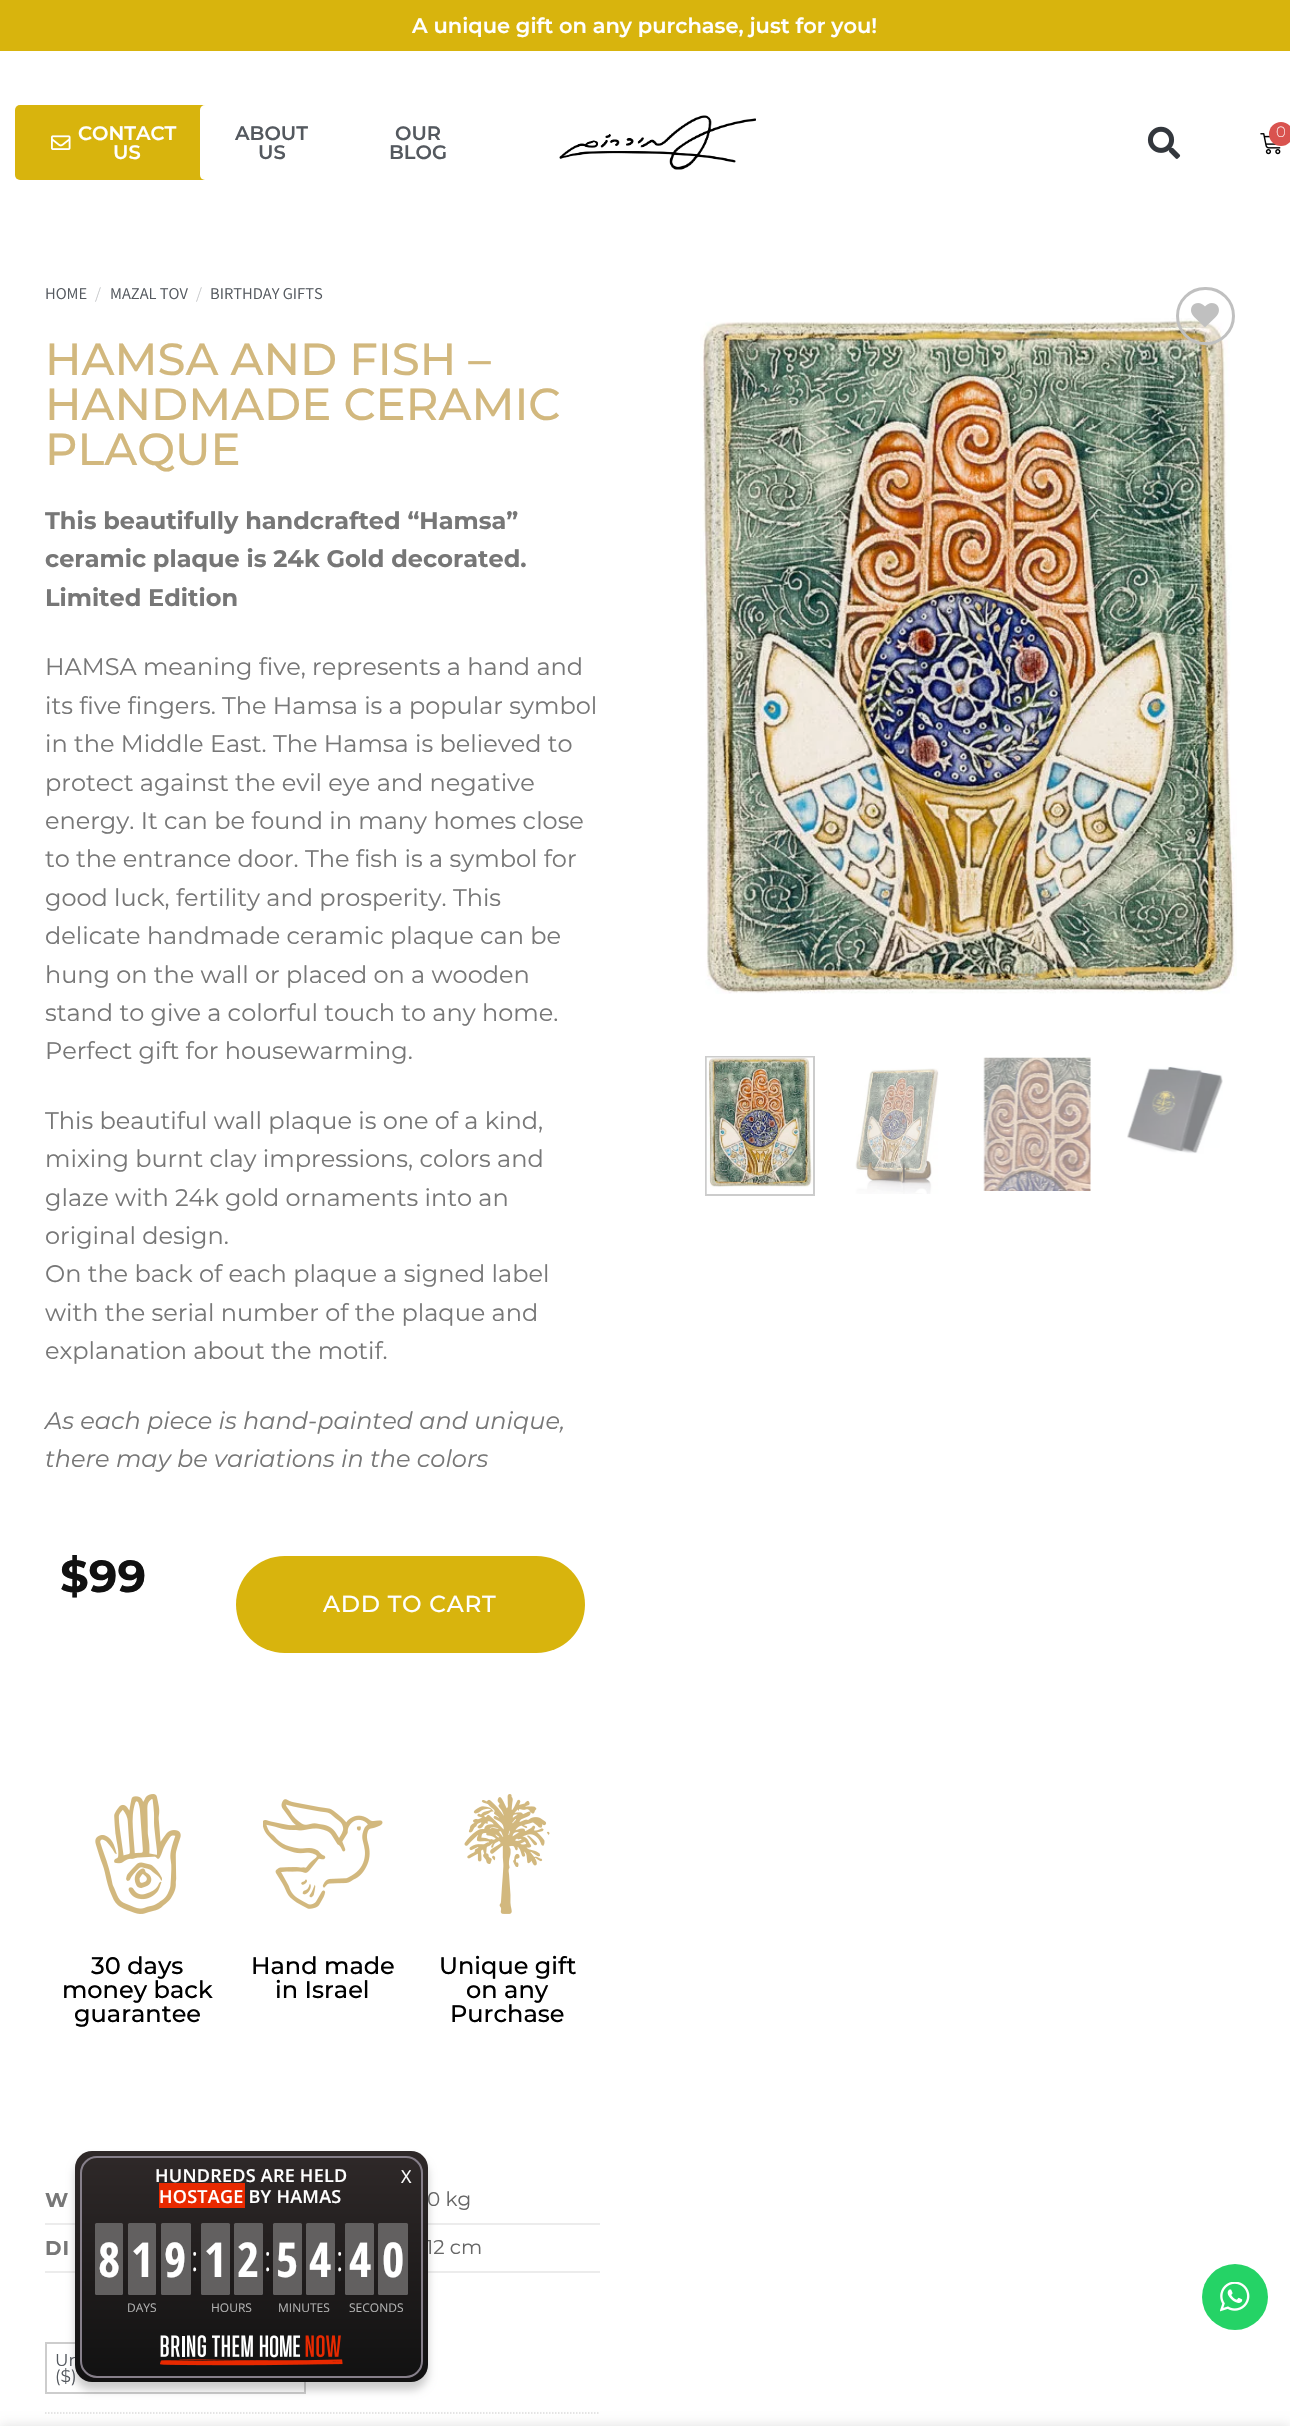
#include "include/core/SkBlurTypes.h"
#include "include/core/SkCanvas.h"
#include "include/core/SkData.h"
#include "include/core/SkFont.h"
#include "include/core/SkFontMgr.h"
#include "include/core/SkImage.h"
#include "include/core/SkMaskFilter.h"
#include "include/core/SkPaint.h"
#include "include/core/SkPathBuilder.h"
#include "include/core/SkTextBlob.h"
#include "include/effects/SkDashPathEffect.h"
#include "include/effects/SkGradientShader.h"
#include "include/utils/SkParsePath.h"

extern sk_sp<SkFontMgr> fontMgr;

static SkFont font(const char* family, int weight, float size, bool italic = false) {
    SkFontStyle style(weight, SkFontStyle::kNormal_Width,
        italic ? SkFontStyle::kItalic_Slant : SkFontStyle::kUpright_Slant);
    SkFont result(fontMgr->matchFamilyStyle(family, style), size);
    result.setSubpixel(true);
    return result;
}

static void drawLabel(SkCanvas* canvas, const char* s, float x, float y, const SkFont& font, SkColor color) {
    SkPaint ink(SkColor4f::FromColor(color));
    ink.setAntiAlias(true);
    canvas->drawString(s, x, y, font, ink);
}

static void drawTracked(SkCanvas* canvas, const char* s, float x, float y, const SkFont& font, const SkPaint& ink, float letter, float word) {
    std::vector<SkGlyphID> glyphs(font.countText(s, strlen(s), SkTextEncoding::kUTF8));
    std::vector<float> xs(glyphs.size());
    font.textToGlyphs(s, strlen(s), SkTextEncoding::kUTF8, glyphs);
    font.getXPos(glyphs, xs, x);
    float extra = 0;
    for (size_t i = 0; i < glyphs.size(); i++) {
        xs[i] += extra;
        extra += letter + word * (glyphs[i] == font.unicharToGlyph(' '));
    }
    canvas->drawTextBlob(SkTextBlob::MakeFromPosHGlyphs(glyphs, xs, y, font), 0, 0, ink);
}

static void fillRect(SkCanvas* canvas, float x, float y, float w, float h, SkColor color) {
    SkPaint ink(SkColor4f::FromColor(color));
    ink.setAntiAlias(true);
    canvas->drawRect(SkRect::MakeXYWH(x, y, w, h), ink);
}

static void fillRRect(SkCanvas* canvas, float x, float y, float w, float h, float radius, SkColor color) {
    SkPaint ink(SkColor4f::FromColor(color));
    ink.setAntiAlias(true);
    canvas->drawRoundRect(SkRect::MakeXYWH(x, y, w, h), radius, radius, ink);
}

static void drawPhoto(SkCanvas* canvas, const char* path, float x, float y, float w, float h) {
    auto image = SkImages::DeferredFromEncodedData(SkData::MakeFromFileName(path));
    canvas->drawImageRect(image, SkRect::MakeXYWH(x, y, w, h), SkSamplingOptions());
}

static SkPath parsePath(const char* data, bool evenOdd = false) {
    SkPath result = *SkParsePath::FromSVGString(data);
    if (evenOdd) result.setFillType(SkPathFillType::kEvenOdd);
    return result;
}

void draw(SkCanvas* canvas) {
    SkPaint paint;
    paint.setAntiAlias(true);
    canvas->clear(0xFFFFFFFF);
    fillRect(canvas, 0, 0, 1290, 51, 0xFFD8B40D);
    SkFont font1 = font("Montserrat", 600, 21);
    drawLabel(canvas, "A unique gift on any purchase, just for you!", 412, 33, font1, 0xFFFFFFFF);
    fillRRect(canvas, 15, 105, 198, 75, 5, 0xFFD8B40D);
    drawPhoto(canvas, "assets/img1.png", 51, 135, 20, 15);
    SkFont font2 = font("Montserrat", 600, 19.5f);
    drawLabel(canvas, "CONTACT", 78, 140, font2, 0xFFFFFFFF);
    drawLabel(canvas, "US", 113, 159, font2, 0xFFFFFFFF);
    fillRRect(canvas, 200, 105, 145, 75, 5, 0xFFFFFFFF);
    drawLabel(canvas, "ABOUT", 235, 140, font2, 0xFF54595F);
    drawLabel(canvas, "US", 258, 159, font2, 0xFF54595F);
    drawLabel(canvas, "OUR", 395, 140, font2, 0xFF54595F);
    drawLabel(canvas, "BLOG", 389, 159, font2, 0xFF54595F);
    drawPhoto(canvas, "assets/img2.png", 559, 115, 197, 55);
    drawPhoto(canvas, "assets/img3.png", 1147, 126, 34, 33);
    drawPhoto(canvas, "assets/img4.png", 1260, 133, 21, 22);
    paint.setColor(0xFFD9534F);
    canvas->drawCircle(1281, 134, 12, paint);
    SkFont font3 = font("Montserrat", 200, 15);
    drawLabel(canvas, "0", 1276, 137, font3, 0xFFFFFFFF);
    SkFont font4 = font("Assistant", 200, 16.5f);
    drawLabel(canvas, "HOME", 45, 299, font4, 0xFF54595F);
    SkFont font5 = font("Assistant", 300, 16.5f);
    drawLabel(canvas, "/", 95, 299, font5, 0xFFC3C5C7);
    drawLabel(canvas, "MAZAL TOV", 110, 299, font4, 0xFF54595F);
    drawLabel(canvas, "/", 196, 299, font5, 0xFFC3C5C7);
    drawLabel(canvas, "BIRTHDAY GIFTS", 210, 299, font4, 0xFF54595F);
    SkFont font6 = font("Montserrat", 500, 45);
    drawLabel(canvas, "HAMSA AND FISH –", 45, 375, font6, 0xFFD2B87E);
    drawLabel(canvas, "HANDMADE CERAMIC", 45, 420, font6, 0xFFD2B87E);
    drawLabel(canvas, "PLAQUE", 45, 465, font6, 0xFFD2B87E);
    SkFont font7 = font("Montserrat", 700, 24);
    drawLabel(canvas, "This beautifully handcrafted “Hamsa”", 45, 529, font7, 0xFF777777);
    drawLabel(canvas, "ceramic plaque is 24k Gold decorated.", 45, 567, font7, 0xFF777777);
    drawLabel(canvas, "Limited Edition", 45, 606, font7, 0xFF777777);
    SkFont font8 = font("Montserrat", 400, 24);
    drawLabel(canvas, "HAMSA meaning five, represents a hand and", 45, 675, font8, 0xFF777777);
    drawLabel(canvas, "its five fingers. The Hamsa is a popular symbol", 45, 714, font8, 0xFF777777);
    drawLabel(canvas, "in the Middle East. The Hamsa is believed to", 45, 752, font8, 0xFF777777);
    drawLabel(canvas, "protect against the evil eye and negative", 45, 791, font8, 0xFF777777);
    drawLabel(canvas, "energy. It can be found in many homes close", 45, 829, font8, 0xFF777777);
    drawLabel(canvas, "to the entrance door. The fish is a symbol for", 45, 867, font8, 0xFF777777);
    drawLabel(canvas, "good luck, fertility and prosperity. This", 45, 906, font8, 0xFF777777);
    drawLabel(canvas, "delicate handmade ceramic plaque can be", 45, 944, font8, 0xFF777777);
    drawLabel(canvas, "hung on the wall or placed on a wooden", 45, 983, font8, 0xFF777777);
    drawLabel(canvas, "stand to give a colorful touch to any home.", 45, 1021, font8, 0xFF777777);
    drawLabel(canvas, "Perfect gift for housewarming.", 45, 1059, font8, 0xFF777777);
    drawLabel(canvas, "This beautiful wall plaque is one of a kind,", 45, 1129, font8, 0xFF777777);
    drawLabel(canvas, "mixing burnt clay impressions, colors and", 45, 1167, font8, 0xFF777777);
    drawLabel(canvas, "glaze with 24k gold ornaments into an", 45, 1206, font8, 0xFF777777);
    drawLabel(canvas, "original design.", 45, 1244, font8, 0xFF777777);
    drawLabel(canvas, "On the back of each plaque a signed label", 45, 1282, font8, 0xFF777777);
    drawLabel(canvas, "with the serial number of the plaque and", 45, 1321, font8, 0xFF777777);
    drawLabel(canvas, "explanation about the motif.", 45, 1359, font8, 0xFF777777);
    SkFont font9 = font("Montserrat", 400, 24, true);
    drawLabel(canvas, "As each piece is hand-painted and unique,", 45, 1429, font9, 0xFF777777);
    drawLabel(canvas, "there may be variations in the colors", 45, 1467, font9, 0xFF777777);
    SkFont font10 = font("Montserrat", 700, 45);
    drawLabel(canvas, "$99", 60, 1592, font10, 0xFF111111);
    fillRRect(canvas, 236, 1556, 349, 97, 48.5f, 0xFFD8B40D);
    SkFont font11 = font("Montserrat", 500, 23.25f);
    paint.setColor(0xFFFFFFFF);
    drawTracked(canvas, "ADD TO CART", 323, 1612, font11, paint, 0.75f, 0);
    drawPhoto(canvas, "assets/img5.png", 95, 1794, 86, 120);
    SkFont font12 = font("Montserrat", 500, 24);
    drawLabel(canvas, "30 days", 91, 1974, font12, 0xFF000000);
    drawLabel(canvas, "money back", 62, 1998, font12, 0xFF000000);
    drawLabel(canvas, "guarantee", 74, 2022, font12, 0xFF000000);
    drawPhoto(canvas, "assets/img6.png", 263, 1799, 120, 110);
    drawLabel(canvas, "Hand made", 251, 1974, font12, 0xFF000000);
    drawLabel(canvas, "in Israel", 275, 1998, font12, 0xFF000000);
    drawPhoto(canvas, "assets/img7.png", 464, 1794, 86, 120);
    drawLabel(canvas, "Unique gift", 439, 1974, font12, 0xFF000000);
    drawLabel(canvas, "on any", 466, 1998, font12, 0xFF000000);
    drawLabel(canvas, "Purchase", 450, 2022, font12, 0xFF000000);
    fillRect(canvas, 45, 2223, 30, 2, 0xFFECECEC);
    SkFont font13 = font("Montserrat", 700, 20);
    paint.setColor(0xFF777777);
    drawTracked(canvas, "W", 45, 2207, font13, paint, 1, 0);
    fillRect(canvas, 428, 2223, 172, 2, 0xFFECECEC);
    SkFont font14 = font("Montserrat", 400, 20);
    drawLabel(canvas, "0 kg", 427, 2206, font14, 0xFF666666);
    fillRect(canvas, 45, 2271, 30, 2, 0xFFECECEC);
    drawTracked(canvas, "DI", 45, 2255, font13, paint, 1, 0);
    fillRect(canvas, 428, 2271, 172, 2, 0xFFECECEC);
    drawLabel(canvas, "12 cm", 426, 2254, font14, 0xFF666666);
    paint.setStroke(true);
    paint.setStrokeWidth(2);
    paint.setColor(0xFFCDCDCD);
    canvas->drawRect(SkRect::MakeXYWH(46, 2343, 259, 50), paint);
    SkFont font15 = font("Montserrat", 400, 17);
    drawLabel(canvas, "Un", 55, 2366, font15, 0xFF54595F);
    drawLabel(canvas, "($)", 55, 2382, font15, 0xFF54595F);
    paint.setStrokeWidth(1.5f);
    paint.setColor(0xFFDDDDDD);
    paint.setPathEffect(SkDashPathEffect::Make({{1.5f, 1.5f}}, 0));
    canvas->drawPath(parsePath("M45 2413H600"), paint);
    paint.setPathEffect(nullptr);
    drawPhoto(canvas, "assets/img9.png", 700, 318, 537, 676);
    paint.setStrokeWidth(3);
    paint.setColor(0xFFC0C0C0);
    canvas->drawRoundRect(SkRect::MakeXYWH(1177.5f, 288.5f, 56, 55), 27.5f, 27.5f, paint);
    drawPhoto(canvas, "assets/img8.png", 1191, 303, 28, 24);
    paint.setStrokeWidth(2);
    paint.setColor(0xFFCCCCCC);
    canvas->drawRect(SkRect::MakeXYWH(706, 1057, 108, 138), paint);
    drawPhoto(canvas, "assets/img10.png", 706, 1057, 107, 137);
    drawPhoto(canvas, "assets/img11.png", 855, 1068, 84, 126);
    drawPhoto(canvas, "assets/img12.png", 983, 1057, 108, 134);
    drawPhoto(canvas, "assets/img13.png", 1127, 1066, 96, 88);
    paint.setStroke(false);
    paint.setColor(0x33000000);
    paint.setMaskFilter(SkMaskFilter::MakeBlur(kNormal_SkBlurStyle, 4));
    canvas->drawRoundRect(SkRect::MakeXYWH(75, 2159, 353, 231), 17, 17, paint);
    paint.setMaskFilter(nullptr);
    {
        const SkColor colors[] = {0xFF2F2929, 0xFF111111};
        const float stops[] = {0, 1};
        const SkPoint ends[] = {{251, 2151}, {251, 2382}};
        paint.setShader(SkGradientShader::MakeLinear(ends, colors, stops, 2, SkTileMode::kClamp));
        paint.setAlpha(255);
    }
    canvas->drawRoundRect(SkRect::MakeXYWH(75, 2151, 353, 231), 17, 17, paint);
    paint.setStroke(true);
    paint.setShader(nullptr);
    paint.setColor(0xFF867F8A);
    canvas->drawRoundRect(SkRect::MakeXYWH(81, 2157, 341, 220), 16, 16, paint);
    SkFont font16 = font("Open Sans", 600, 18);
    paint.setStroke(false);
    paint.setColor(0xFFFFFFFF);
    drawTracked(canvas, "HUNDREDS ARE HELD", 155, 2182, font16, paint, 0.25f, 0);
    fillRect(canvas, 159, 2183, 86, 25, 0xFFE82900);
    drawTracked(canvas, "HOSTAGE BY HAMAS", 159, 2203, font16, paint, 0.25f, 0);
    fillRRect(canvas, 95, 2223, 28, 72, 1.5f, 0xFF626060);
    SkFont font17 = font("Open Sans Condensed", 700, 48);
    drawLabel(canvas, "8", 98, 2277, font17, 0xFFFFFFFF);
    fillRRect(canvas, 128, 2223, 28, 72, 1.5f, 0xFF626060);
    drawLabel(canvas, "1", 131, 2277, font17, 0xFFFFFFFF);
    fillRRect(canvas, 161, 2223, 30, 72, 1.5f, 0xFF626060);
    drawLabel(canvas, "9", 164, 2277, font17, 0xFFFFFFFF);
    SkFont font18 = font("Open Sans", 400, 12);
    drawLabel(canvas, "DAYS", 127, 2312, font18, 0xFFAFAFAF);
    SkFont font19 = font("Open Sans Condensed", 300, 36);
    drawLabel(canvas, ":", 191, 2271, font19, 0xFFFFFFFF);
    fillRRect(canvas, 201, 2223, 29, 72, 1.5f, 0xFF626060);
    drawLabel(canvas, "1", 204, 2277, font17, 0xFFFFFFFF);
    fillRRect(canvas, 234, 2223, 29, 72, 1.5f, 0xFF626060);
    drawLabel(canvas, "2", 237, 2277, font17, 0xFFFFFFFF);
    drawLabel(canvas, "HOURS", 211, 2312, font18, 0xFFAFAFAF);
    drawLabel(canvas, ":", 264, 2271, font19, 0xFFFFFFFF);
    fillRRect(canvas, 273, 2223, 29, 72, 1.5f, 0xFF626060);
    drawLabel(canvas, "5", 276, 2277, font17, 0xFFFFFFFF);
    fillRRect(canvas, 306, 2223, 29, 72, 1.5f, 0xFF626060);
    drawLabel(canvas, "4", 309, 2277, font17, 0xFFFFFFFF);
    drawLabel(canvas, "MINUTES", 278, 2312, font18, 0xFFAFAFAF);
    drawLabel(canvas, ":", 336, 2271, font19, 0xFFFFFFFF);
    fillRRect(canvas, 345, 2223, 29, 72, 1.5f, 0xFF626060);
    drawLabel(canvas, "4", 349, 2277, font17, 0xFFFFFFFF);
    fillRRect(canvas, 378, 2223, 30, 72, 1.5f, 0xFF626060);
    drawLabel(canvas, "0", 382, 2277, font17, 0xFFFFFFFF);
    drawLabel(canvas, "SECONDS", 349, 2312, font18, 0xFFAFAFAF);
    drawPhoto(canvas, "assets/img14.png", 160, 2335, 183, 31);
    SkFont font20 = font("Open Sans", 400, 18);
    drawLabel(canvas, "X", 401, 2183, font20, 0xFFFFFFFF);
    paint.setColor(0xFF25D366);
    canvas->drawCircle(1235, 2297, 33, paint);
    drawPhoto(canvas, "assets/img15.png", 1220, 2282, 30, 30);
    paint.setColor(0x24000000);
    paint.setMaskFilter(SkMaskFilter::MakeBlur(kNormal_SkBlurStyle, 7));
    canvas->drawRect(SkRect::MakeXYWH(0, 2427, 1290, 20), paint);
    paint.setMaskFilter(nullptr);
}
